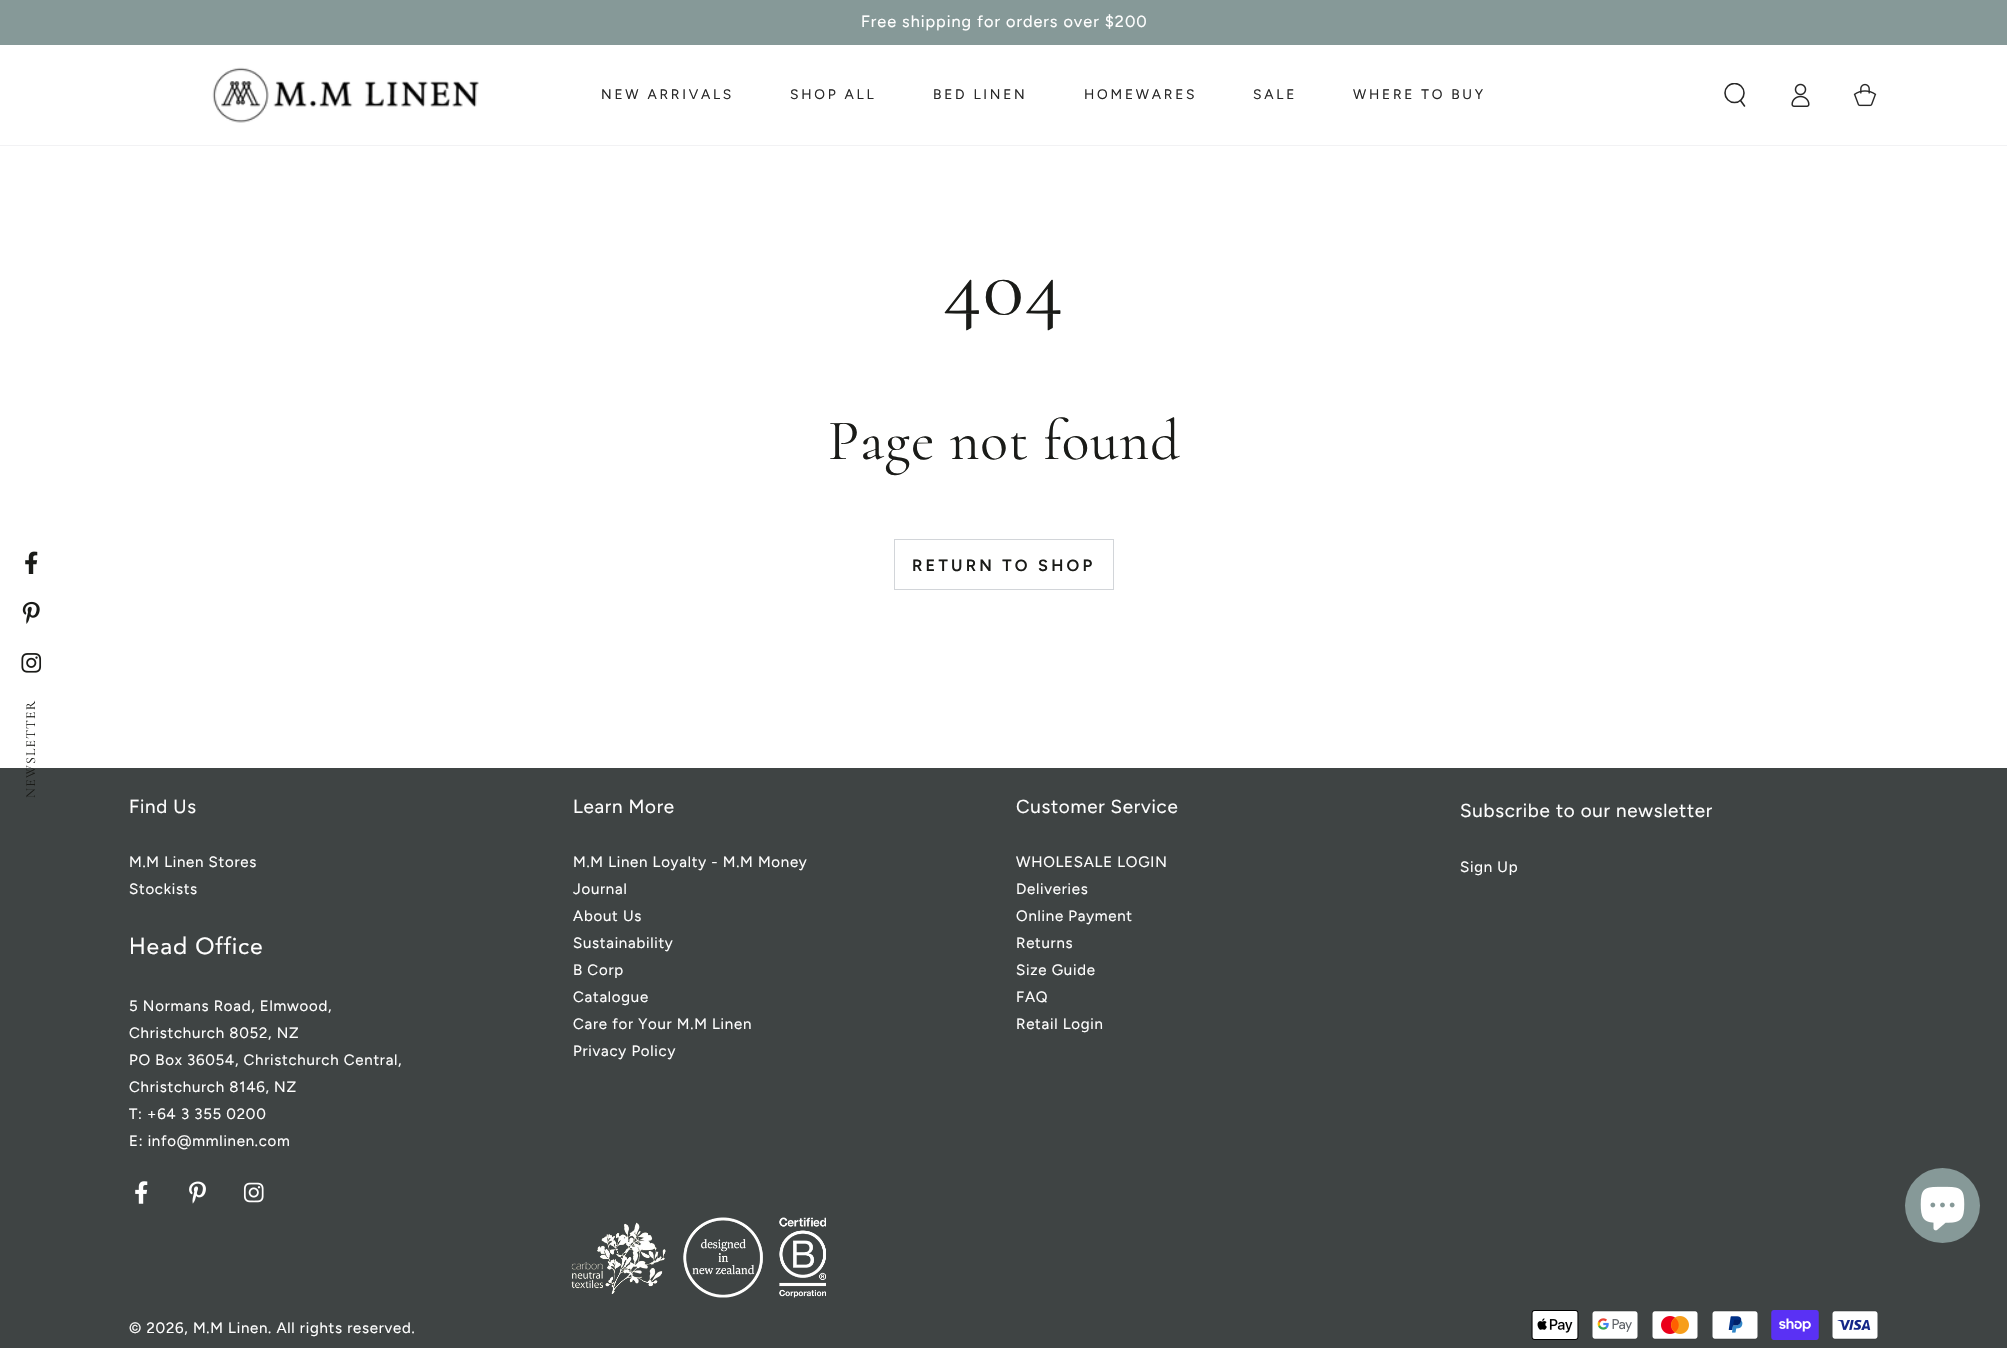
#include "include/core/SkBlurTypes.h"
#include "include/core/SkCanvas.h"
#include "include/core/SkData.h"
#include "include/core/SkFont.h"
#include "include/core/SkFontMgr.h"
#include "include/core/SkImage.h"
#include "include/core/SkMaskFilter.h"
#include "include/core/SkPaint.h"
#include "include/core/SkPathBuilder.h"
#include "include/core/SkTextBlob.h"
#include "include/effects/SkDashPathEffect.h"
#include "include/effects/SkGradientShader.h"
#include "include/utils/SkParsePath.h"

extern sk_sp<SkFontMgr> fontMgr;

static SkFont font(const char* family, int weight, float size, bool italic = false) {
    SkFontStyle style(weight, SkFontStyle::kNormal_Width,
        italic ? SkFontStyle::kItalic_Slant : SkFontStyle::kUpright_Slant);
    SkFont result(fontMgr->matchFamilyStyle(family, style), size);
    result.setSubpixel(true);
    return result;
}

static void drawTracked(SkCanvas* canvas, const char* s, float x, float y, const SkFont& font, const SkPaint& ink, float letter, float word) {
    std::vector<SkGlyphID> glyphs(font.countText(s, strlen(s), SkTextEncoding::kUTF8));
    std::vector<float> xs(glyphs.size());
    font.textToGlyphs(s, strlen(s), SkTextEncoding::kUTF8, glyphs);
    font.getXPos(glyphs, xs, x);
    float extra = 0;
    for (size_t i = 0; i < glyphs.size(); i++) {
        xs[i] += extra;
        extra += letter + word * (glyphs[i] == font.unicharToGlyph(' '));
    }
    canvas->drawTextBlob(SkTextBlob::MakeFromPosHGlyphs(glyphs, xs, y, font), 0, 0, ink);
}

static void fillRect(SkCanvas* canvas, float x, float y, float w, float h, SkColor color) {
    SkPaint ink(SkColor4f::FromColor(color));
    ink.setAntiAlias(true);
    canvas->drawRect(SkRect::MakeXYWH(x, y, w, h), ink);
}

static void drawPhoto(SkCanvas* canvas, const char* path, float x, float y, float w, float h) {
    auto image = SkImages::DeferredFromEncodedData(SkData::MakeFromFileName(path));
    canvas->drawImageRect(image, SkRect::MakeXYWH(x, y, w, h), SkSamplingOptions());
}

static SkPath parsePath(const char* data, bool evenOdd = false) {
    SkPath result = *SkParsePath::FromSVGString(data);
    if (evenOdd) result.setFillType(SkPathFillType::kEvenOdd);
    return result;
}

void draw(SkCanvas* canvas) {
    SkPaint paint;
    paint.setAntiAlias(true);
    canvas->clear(0xFFFFFFFF);
    drawPhoto(canvas, "assets/img1.png", 25, 551, 13, 23);
    drawPhoto(canvas, "assets/img2.png", 22, 601, 18, 23);
    drawPhoto(canvas, "assets/img3.png", 21, 653, 21, 20);
    fillRect(canvas, 0, 768, 2007, 580, 0xFF3F4444);
    SkFont font1 = font("Cormorant", 400, 13.75f);
    paint.setColor(0xFF1A1B18);
    canvas->save();
    canvas->rotate(-90, 35, 798);
    drawTracked(canvas, "NEWSLETTER", 35, 798, font1, paint, 1.25f, 0);
    canvas->restore();
    fillRect(canvas, 0, 0, 2007, 45, 0xFF869998);
    SkFont font2 = font("Figtree", 400, 16.25f);
    paint.setColor(0xFFFFFFFF);
    drawTracked(canvas, "Free shipping for orders over $200", 861, 27, font2, paint, 1, 0);
    paint.setColor(0xFFF2F2F4);
    canvas->drawPath(parsePath("M0 145V146H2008V46V145Z"), paint);
    drawPhoto(canvas, "assets/img4.png", 212, 67, 267, 56);
    SkFont font3 = font("Figtree", 400, 13.75f);
    paint.setColor(0xFF282828);
    drawTracked(canvas, "NEW ARRIVALS", 601, 99, font3, paint, 2.75f, 0);
    drawTracked(canvas, "SHOP ALL", 790, 99, font3, paint, 2.75f, 0);
    drawTracked(canvas, "BED LINEN", 933, 99, font3, paint, 2.75f, 0);
    drawTracked(canvas, "HOMEWARES", 1084, 99, font3, paint, 2.75f, 0);
    drawTracked(canvas, "SALE", 1253, 99, font3, paint, 2.75f, 0);
    drawTracked(canvas, "WHERE TO BUY", 1353, 99, font3, paint, 2.75f, 0);
    canvas->save();
    canvas->clipRect(SkRect::MakeXYWH(1723, 83, 25, 25));
    paint.setStroke(true);
    paint.setStrokeWidth(1.6f);
    canvas->drawCircle(1734.5f, 93, 9.5f, paint);
    canvas->restore();
    paint.setStrokeCap(SkPaint::kRound_Cap);
    canvas->drawPath(parsePath("M1740.5 100.5L1744.5 106"), paint);
    drawPhoto(canvas, "assets/img5.png", 1791, 83, 19, 24);
    drawPhoto(canvas, "assets/img6.png", 1853, 83, 24, 24);
    SkFont font4 = font("Cormorant", 400, 86);
    paint.setStroke(false);
    paint.setColor(0xFF1A1B18);
    drawTracked(canvas, "404", 943, 314, font4, paint, 0.9f, 0);
    SkFont font5 = font("Cormorant", 400, 57.5f);
    drawTracked(canvas, "Page not found", 828, 459, font5, paint, 0.9f, 0);
    paint.setStroke(true);
    paint.setStrokeWidth(1);
    paint.setStrokeCap(SkPaint::kButt_Cap);
    paint.setColor(0xFFD2D5D9);
    canvas->drawRect(SkRect::MakeXYWH(894.5f, 539.5f, 219, 50), paint);
    SkFont font6 = font("Figtree", 600, 16.25f);
    paint.setStroke(false);
    paint.setColor(0xFF1A1B18);
    drawTracked(canvas, "RETURN TO SHOP", 912, 571, font6, paint, 3.25f, 0);
    SkFont font7 = font("Figtree", 400, 18.75f);
    paint.setColor(0xFFFFFFFF);
    drawTracked(canvas, "Find Us", 129, 813, font7, paint, 0.75f, 0);
    SkFont font8 = font("Figtree", 400, 15);
    drawTracked(canvas, "M.M Linen Stores", 129, 867, font8, paint, 0.75f, 0);
    drawTracked(canvas, "Stockists", 129, 894, font8, paint, 0.75f, 0);
    SkFont font9 = font("Avenir", 400, 23);
    drawTracked(canvas, "Head Office", 129, 954, font9, paint, 0.9f, 0);
    drawTracked(canvas, "5 Normans Road, Elmwood,", 129, 1011, font8, paint, 0.75f, 0);
    drawTracked(canvas, "Christchurch 8052, NZ", 129, 1038, font8, paint, 0.75f, 0);
    drawTracked(canvas, "PO Box 36054, Christchurch Central,", 129, 1065, font8, paint, 0.75f, 0);
    drawTracked(canvas, "Christchurch 8146, NZ", 129, 1092, font8, paint, 0.75f, 0);
    drawTracked(canvas, "T: +64 3 355 0200", 129, 1119, font8, paint, 0.75f, 0);
    drawTracked(canvas, "E: info@mmlinen.com", 129, 1146, font8, paint, 0.75f, 0);
    drawTracked(canvas, "Learn More", 573, 813, font7, paint, 0.75f, 0);
    drawTracked(canvas, "M.M Linen Loyalty - M.M Money", 573, 867, font8, paint, 0.75f, 0);
    drawTracked(canvas, "Journal", 573, 894, font8, paint, 0.75f, 0);
    drawTracked(canvas, "About Us", 573, 921, font8, paint, 0.75f, 0);
    drawTracked(canvas, "Sustainability", 573, 948, font8, paint, 0.75f, 0);
    drawTracked(canvas, "B Corp", 573, 975, font8, paint, 0.75f, 0);
    drawTracked(canvas, "Catalogue", 573, 1002, font8, paint, 0.75f, 0);
    drawTracked(canvas, "Care for Your M.M Linen", 573, 1029, font8, paint, 0.75f, 0);
    drawTracked(canvas, "Privacy Policy", 573, 1056, font8, paint, 0.75f, 0);
    drawTracked(canvas, "Customer Service", 1016, 813, font7, paint, 0.75f, 0);
    drawTracked(canvas, "WHOLESALE LOGIN", 1016, 867, font8, paint, 0.75f, 0);
    drawTracked(canvas, "Deliveries", 1016, 894, font8, paint, 0.75f, 0);
    drawTracked(canvas, "Online Payment", 1016, 921, font8, paint, 0.75f, 0);
    drawTracked(canvas, "Returns", 1016, 948, font8, paint, 0.75f, 0);
    drawTracked(canvas, "Size Guide", 1016, 975, font8, paint, 0.75f, 0);
    drawTracked(canvas, "FAQ", 1016, 1002, font8, paint, 0.75f, 0);
    drawTracked(canvas, "Retail Login", 1016, 1029, font8, paint, 0.75f, 0);
    drawTracked(canvas, "Subscribe to our newsletter", 1460, 817, font7, paint, 0.75f, 0);
    drawTracked(canvas, "Sign Up", 1460, 872, font8, paint, 0.75f, 0);
    drawPhoto(canvas, "assets/img7.png", 135, 1181, 13, 23);
    drawPhoto(canvas, "assets/img8.png", 189, 1181, 17, 23);
    drawPhoto(canvas, "assets/img9.png", 243, 1182, 21, 21);
    drawPhoto(canvas, "assets/img10.png", 571, 1217, 255, 81);
    drawTracked(canvas, "© 2026, M.M Linen. All rights reserved.", 129, 1333, font8, paint, 0.75f, 0);
    drawPhoto(canvas, "assets/img11.png", 1531, 1310, 48, 30);
    drawPhoto(canvas, "assets/img12.png", 1592, 1310, 46, 30);
    drawPhoto(canvas, "assets/img13.png", 1652, 1310, 46, 30);
    drawPhoto(canvas, "assets/img14.png", 1712, 1310, 46, 30);
    drawPhoto(canvas, "assets/img15.png", 1771, 1310, 48, 30);
    drawPhoto(canvas, "assets/img16.png", 1832, 1310, 46, 30);
    paint.setColor(0xFF869998);
    canvas->drawCircle(1942.5f, 1205.5f, 37.5f, paint);
    drawPhoto(canvas, "assets/img17.png", 1920, 1186, 45, 45);
}
